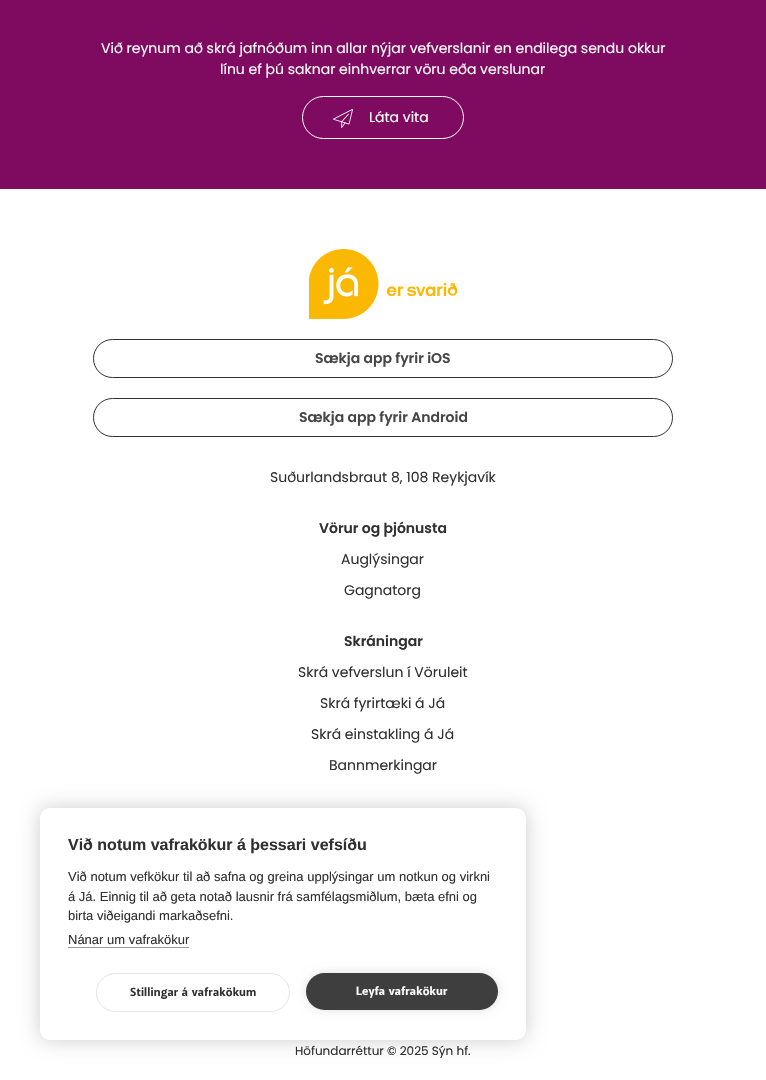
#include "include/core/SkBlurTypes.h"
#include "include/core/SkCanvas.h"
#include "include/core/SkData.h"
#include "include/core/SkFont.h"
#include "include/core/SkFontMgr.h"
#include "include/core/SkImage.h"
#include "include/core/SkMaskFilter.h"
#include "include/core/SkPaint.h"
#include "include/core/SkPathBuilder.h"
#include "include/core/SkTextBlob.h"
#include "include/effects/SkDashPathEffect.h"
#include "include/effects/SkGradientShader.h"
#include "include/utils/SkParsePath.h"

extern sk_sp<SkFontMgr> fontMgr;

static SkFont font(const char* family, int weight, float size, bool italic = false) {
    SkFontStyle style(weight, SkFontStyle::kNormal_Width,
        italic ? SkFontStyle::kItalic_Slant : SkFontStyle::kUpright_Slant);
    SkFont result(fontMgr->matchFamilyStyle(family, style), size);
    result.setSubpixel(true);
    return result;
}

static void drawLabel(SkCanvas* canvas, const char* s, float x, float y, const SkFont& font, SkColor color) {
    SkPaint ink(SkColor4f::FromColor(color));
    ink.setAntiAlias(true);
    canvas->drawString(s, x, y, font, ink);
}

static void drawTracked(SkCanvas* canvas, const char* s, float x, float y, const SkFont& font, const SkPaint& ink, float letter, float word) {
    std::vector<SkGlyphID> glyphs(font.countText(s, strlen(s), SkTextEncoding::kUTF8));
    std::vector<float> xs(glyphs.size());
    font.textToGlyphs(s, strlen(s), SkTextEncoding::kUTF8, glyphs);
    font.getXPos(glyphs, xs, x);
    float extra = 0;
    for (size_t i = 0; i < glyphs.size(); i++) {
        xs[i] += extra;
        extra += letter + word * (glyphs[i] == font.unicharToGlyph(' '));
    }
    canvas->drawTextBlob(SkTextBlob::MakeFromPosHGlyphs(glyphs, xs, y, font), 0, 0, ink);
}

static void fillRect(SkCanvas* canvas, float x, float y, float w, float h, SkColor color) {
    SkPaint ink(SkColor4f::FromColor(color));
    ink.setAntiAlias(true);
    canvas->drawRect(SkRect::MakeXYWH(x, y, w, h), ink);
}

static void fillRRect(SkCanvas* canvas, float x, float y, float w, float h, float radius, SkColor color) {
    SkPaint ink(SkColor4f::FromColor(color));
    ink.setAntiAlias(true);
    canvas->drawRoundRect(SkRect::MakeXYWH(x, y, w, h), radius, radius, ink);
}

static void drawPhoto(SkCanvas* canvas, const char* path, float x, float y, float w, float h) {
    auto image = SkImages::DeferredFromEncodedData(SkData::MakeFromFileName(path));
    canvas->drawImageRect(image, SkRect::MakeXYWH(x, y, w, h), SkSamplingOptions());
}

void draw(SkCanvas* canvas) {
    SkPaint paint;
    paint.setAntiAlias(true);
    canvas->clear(0xFF7F0B61);
    SkFont font1 = font("Poppins", 400, 14);
    drawLabel(canvas, "Við reynum að skrá jafnóðum inn allar nýjar vefverslanir en endilega sendu okkur", 101, 53, font1, 0xFFFFFFFF);
    drawLabel(canvas, "línu ef þú saknar einhverrar vöru eða verslunar", 220, 74, font1, 0xFFFFFFFF);
    paint.setStroke(true);
    paint.setStrokeWidth(1);
    paint.setColor(0xFFFFFFFF);
    canvas->drawRoundRect(SkRect::MakeXYWH(302.5f, 96.5f, 161, 42), 21, 21, paint);
    drawPhoto(canvas, "assets/img1.png", 333, 109, 20, 19);
    drawLabel(canvas, "Láta vita", 369, 122, font1, 0xFFFFFFFF);
    fillRect(canvas, 0, 189, 766, 891, 0xFFFFFFFF);
    drawPhoto(canvas, "assets/img2.png", 309, 249, 148, 70);
    paint.setColor(0xFF303030);
    canvas->drawRoundRect(SkRect::MakeXYWH(93.5f, 339.5f, 579, 38), 19, 19, paint);
    SkFont font2 = font("Poppins", 600, 14);
    drawLabel(canvas, "Sækja app fyrir iOS", 315, 363, font2, 0xFF464646);
    canvas->drawRoundRect(SkRect::MakeXYWH(93.5f, 398.5f, 579, 38), 19, 19, paint);
    drawLabel(canvas, "Sækja app fyrir Android", 299, 422, font2, 0xFF464646);
    drawLabel(canvas, "Suðurlandsbraut 8, 108 Reykjavík", 270, 482, font1, 0xFF303030);
    drawLabel(canvas, "Vörur og þjónusta", 319, 533, font2, 0xFF303030);
    drawLabel(canvas, "Auglýsingar", 341, 564, font1, 0xFF303030);
    drawLabel(canvas, "Gagnatorg", 344, 595, font1, 0xFF303030);
    drawLabel(canvas, "Skráningar", 344, 646, font2, 0xFF303030);
    drawLabel(canvas, "Skrá vefverslun í Vöruleit", 298, 677, font1, 0xFF303030);
    drawLabel(canvas, "Skrá fyrirtæki á Já", 320, 708, font1, 0xFF303030);
    drawLabel(canvas, "Skrá einstakling á Já", 311, 739, font1, 0xFF303030);
    drawLabel(canvas, "Bannmerkingar", 329, 770, font1, 0xFF303030);
    SkFont font3 = font("Poppins", 400, 12);
    drawLabel(canvas, "Höfundarréttur © 2025 Sýn hf.", 295, 1055, font3, 0xFF303030);
    paint.setStroke(false);
    paint.setColor(0x33000000);
    paint.setMaskFilter(SkMaskFilter::MakeBlur(kNormal_SkBlurStyle, 10));
    canvas->drawRoundRect(SkRect::MakeXYWH(40, 808, 486, 232), 10, 10, paint);
    paint.setMaskFilter(nullptr);
    fillRRect(canvas, 40, 808, 486, 232, 10, 0xFFFFFFFF);
    SkFont font4 = font("Liberation Sans", 700, 16);
    drawLabel(canvas, "Við notum vafrakökur á þessari vefsíðu", 68, 850, font4, 0xFF303030);
    SkFont font5 = font("Liberation Sans", 400, 13);
    drawLabel(canvas, "Við notum vefkökur til að safna og greina upplýsingar um notkun og virkni", 68, 881, font5, 0xFF303030);
    drawLabel(canvas, "á Já. Einnig til að geta notað lausnir frá samfélagsmiðlum, bæta efni og", 68, 901, font5, 0xFF303030);
    drawLabel(canvas, "birta viðeigandi markaðsefni.", 68, 920, font5, 0xFF303030);
    drawLabel(canvas, "Nánar um vafrakökur", 68, 944, font5, 0xFF303030);
    fillRect(canvas, 68, 947, 121, 1, 0xFF999999);
    paint.setStroke(true);
    paint.setColor(0xFFE5E5E5);
    canvas->drawRoundRect(SkRect::MakeXYWH(96.5f, 973.5f, 193, 38), 19, 19, paint);
    SkFont font6 = font("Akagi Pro", 600, 12);
    paint.setStroke(false);
    paint.setColor(0xFF303030);
    drawTracked(canvas, "Stillingar á vafrakökum", 130, 996, font6, paint, 0.2f, 0);
    paint.setColor(0x1F000000);
    paint.setMaskFilter(SkMaskFilter::MakeBlur(kNormal_SkBlurStyle, 5));
    canvas->drawRoundRect(SkRect::MakeXYWH(306, 973, 192, 37), 18.5f, 18.5f, paint);
    paint.setMaskFilter(nullptr);
    fillRRect(canvas, 306, 973, 192, 37, 18.5f, 0xFF3E3E3E);
    paint.setColor(0xFFFFFFFF);
    drawTracked(canvas, "Leyfa vafrakökur", 356, 995, font6, paint, 0.2f, 0);
}
